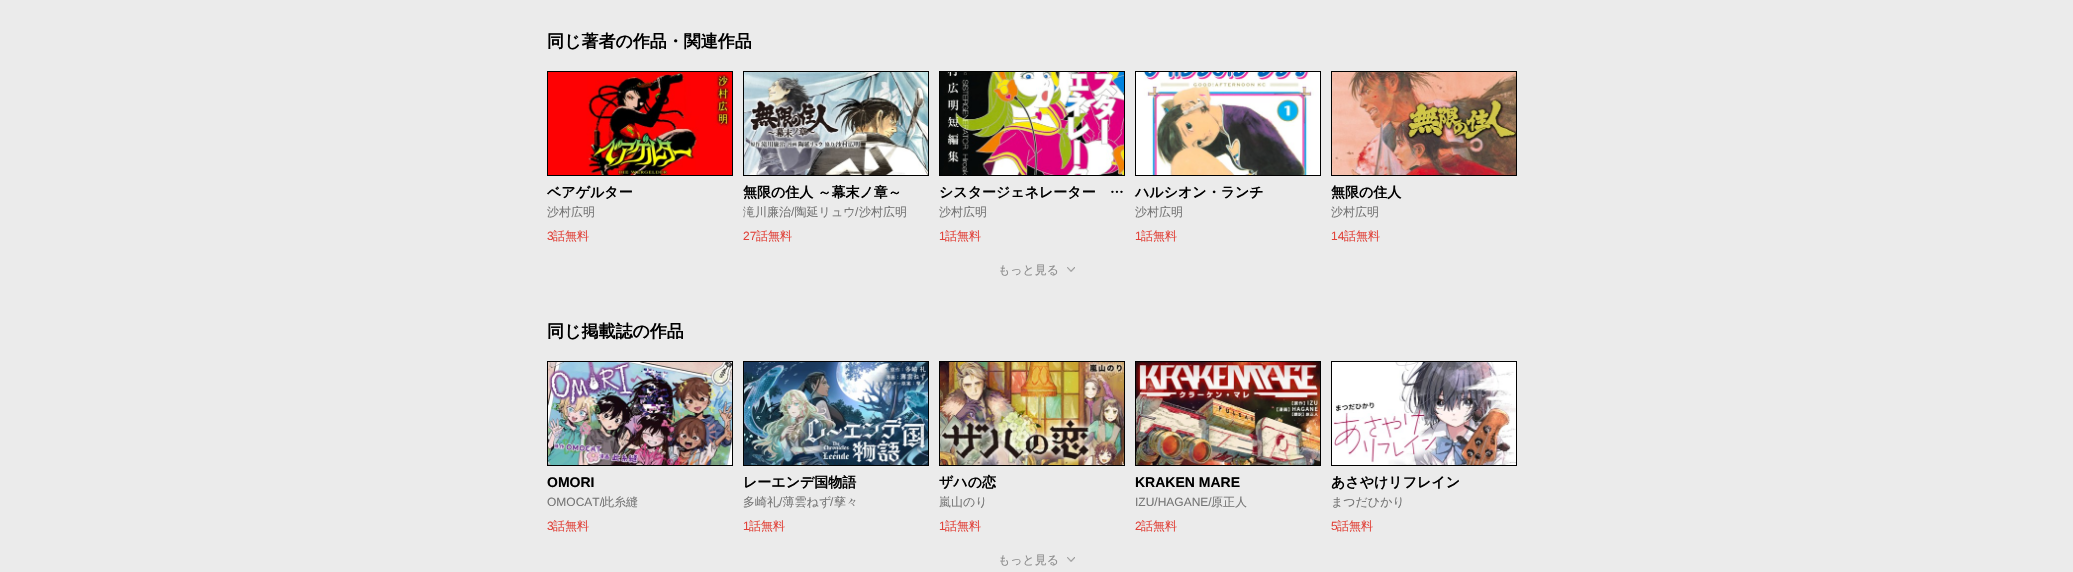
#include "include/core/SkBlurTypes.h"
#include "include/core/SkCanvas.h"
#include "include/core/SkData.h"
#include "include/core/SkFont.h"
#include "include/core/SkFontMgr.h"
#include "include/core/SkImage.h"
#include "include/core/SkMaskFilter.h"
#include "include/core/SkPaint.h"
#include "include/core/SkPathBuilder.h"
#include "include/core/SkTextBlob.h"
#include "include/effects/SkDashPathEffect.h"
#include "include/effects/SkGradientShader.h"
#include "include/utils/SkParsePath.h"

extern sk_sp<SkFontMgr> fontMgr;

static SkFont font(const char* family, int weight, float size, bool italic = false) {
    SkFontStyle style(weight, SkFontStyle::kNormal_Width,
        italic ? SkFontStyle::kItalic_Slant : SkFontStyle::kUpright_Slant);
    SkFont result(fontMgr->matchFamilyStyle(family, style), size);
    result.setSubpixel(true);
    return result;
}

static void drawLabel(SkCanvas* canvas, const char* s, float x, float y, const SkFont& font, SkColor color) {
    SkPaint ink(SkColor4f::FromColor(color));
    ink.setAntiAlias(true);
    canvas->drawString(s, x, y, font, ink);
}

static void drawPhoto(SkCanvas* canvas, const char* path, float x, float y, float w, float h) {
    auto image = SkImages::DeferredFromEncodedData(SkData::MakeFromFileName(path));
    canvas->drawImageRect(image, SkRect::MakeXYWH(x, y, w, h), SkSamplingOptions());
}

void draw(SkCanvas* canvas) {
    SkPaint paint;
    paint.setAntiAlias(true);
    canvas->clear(0xFFEBEBEB);
    SkFont font1 = font("WenQuanYi Zen Hei", 700, 17);
    drawLabel(canvas, "同じ著者の作品・関連作品", 547, 47, font1, 0xFF000000);
    paint.setStroke(true);
    paint.setStrokeWidth(1);
    paint.setColor(0xFF000000);
    canvas->drawRect(SkRect::MakeXYWH(547.5f, 71.5f, 185, 104), paint);
    drawPhoto(canvas, "assets/img1.png", 548, 72, 184, 103);
    SkFont font2 = font("WenQuanYi Zen Hei", 700, 14);
    drawLabel(canvas, "ベアゲルター", 547, 197, font2, 0xFF000000);
    SkFont font3 = font("WenQuanYi Zen Hei", 500, 12);
    drawLabel(canvas, "沙村広明", 547, 216, font3, 0xFF767676);
    SkFont font4 = font("Liberation Sans", 400, 12);
    drawLabel(canvas, "3", 547, 240, font4, 0xFFE14138);
    drawLabel(canvas, "話無料", 553, 240, font3, 0xFFE14138);
    canvas->drawRect(SkRect::MakeXYWH(743.5f, 71.5f, 185, 104), paint);
    drawPhoto(canvas, "assets/img2.png", 744, 72, 184, 103);
    drawLabel(canvas, "無限の住人 ～幕末ノ章～", 743, 197, font2, 0xFF000000);
    drawLabel(canvas, "滝川廉治 陶延リュウ 沙村広明", 743, 216, font3, 0xFF767676);
    drawLabel(canvas, "/", 791, 216, font4, 0xFF767676);
    drawLabel(canvas, "/", 855, 216, font4, 0xFF767676);
    drawLabel(canvas, "27", 743, 240, font4, 0xFFE14138);
    drawLabel(canvas, "話無料", 756, 240, font3, 0xFFE14138);
    canvas->drawRect(SkRect::MakeXYWH(939.5f, 71.5f, 185, 104), paint);
    drawPhoto(canvas, "assets/img3.png", 940, 72, 184, 103);
    drawLabel(canvas, "シスタージェネレーター　…", 939, 197, font2, 0xFF000000);
    drawLabel(canvas, "沙村広明", 939, 216, font3, 0xFF767676);
    drawLabel(canvas, "1", 939, 240, font4, 0xFFE14138);
    drawLabel(canvas, "話無料", 945, 240, font3, 0xFFE14138);
    canvas->drawRect(SkRect::MakeXYWH(1135.5f, 71.5f, 185, 104), paint);
    drawPhoto(canvas, "assets/img4.png", 1136, 72, 184, 103);
    drawLabel(canvas, "ハルシオン・ランチ", 1135, 197, font2, 0xFF000000);
    drawLabel(canvas, "沙村広明", 1135, 216, font3, 0xFF767676);
    drawLabel(canvas, "1", 1135, 240, font4, 0xFFE14138);
    drawLabel(canvas, "話無料", 1141, 240, font3, 0xFFE14138);
    canvas->drawRect(SkRect::MakeXYWH(1331.5f, 71.5f, 185, 104), paint);
    drawPhoto(canvas, "assets/img5.png", 1332, 72, 184, 103);
    drawLabel(canvas, "無限の住人", 1331, 197, font2, 0xFF000000);
    drawLabel(canvas, "沙村広明", 1331, 216, font3, 0xFF767676);
    drawLabel(canvas, "14", 1331, 240, font4, 0xFFE14138);
    drawLabel(canvas, "話無料", 1344, 240, font3, 0xFFE14138);
    drawLabel(canvas, "もっと見る", 998, 274, font3, 0xFF8D8D8D);
    drawPhoto(canvas, "assets/img6.png", 1067, 267, 8, 5);
    drawLabel(canvas, "同じ掲載誌の作品", 547, 337, font1, 0xFF000000);
    canvas->drawRect(SkRect::MakeXYWH(547.5f, 361.5f, 185, 104), paint);
    drawPhoto(canvas, "assets/img7.png", 548, 362, 184, 103);
    SkFont font5 = font("Liberation Sans", 700, 14);
    drawLabel(canvas, "OMORI", 547, 487, font5, 0xFF000000);
    drawLabel(canvas, "OMOCAT/", 547, 506, font4, 0xFF767676);
    drawLabel(canvas, "此糸縫", 602, 506, font3, 0xFF767676);
    drawLabel(canvas, "3", 547, 530, font4, 0xFFE14138);
    drawLabel(canvas, "話無料", 553, 530, font3, 0xFFE14138);
    canvas->drawRect(SkRect::MakeXYWH(743.5f, 361.5f, 185, 104), paint);
    drawPhoto(canvas, "assets/img8.png", 744, 362, 184, 103);
    drawLabel(canvas, "レーエンデ国物語", 743, 487, font2, 0xFF000000);
    drawLabel(canvas, "多崎礼 薄雲ねず", 743, 506, font3, 0xFF767676);
    drawLabel(canvas, "/", 830, 506, font4, 0xFF767676);
    drawLabel(canvas, "孳々", 834, 506, font3, 0xFF767676);
    drawLabel(canvas, "/", 779, 506, font4, 0xFF767676);
    drawLabel(canvas, "1", 743, 530, font4, 0xFFE14138);
    drawLabel(canvas, "話無料", 749, 530, font3, 0xFFE14138);
    canvas->drawRect(SkRect::MakeXYWH(939.5f, 361.5f, 185, 104), paint);
    drawPhoto(canvas, "assets/img9.png", 940, 362, 184, 103);
    drawLabel(canvas, "ザハの恋", 939, 487, font2, 0xFF000000);
    drawLabel(canvas, "嵐山のり", 939, 506, font3, 0xFF767676);
    drawLabel(canvas, "1", 939, 530, font4, 0xFFE14138);
    drawLabel(canvas, "話無料", 945, 530, font3, 0xFFE14138);
    canvas->drawRect(SkRect::MakeXYWH(1135.5f, 361.5f, 185, 104), paint);
    drawPhoto(canvas, "assets/img10.png", 1136, 362, 184, 103);
    drawLabel(canvas, "KRAKEN MARE", 1135, 487, font5, 0xFF000000);
    drawLabel(canvas, "IZU/HAGANE/", 1135, 506, font4, 0xFF767676);
    drawLabel(canvas, "原正人", 1211, 506, font3, 0xFF767676);
    drawLabel(canvas, "2", 1135, 530, font4, 0xFFE14138);
    drawLabel(canvas, "話無料", 1141, 530, font3, 0xFFE14138);
    canvas->drawRect(SkRect::MakeXYWH(1331.5f, 361.5f, 185, 104), paint);
    drawPhoto(canvas, "assets/img11.png", 1332, 362, 184, 103);
    drawLabel(canvas, "あさやけリフレイン", 1331, 487, font2, 0xFF000000);
    drawLabel(canvas, "まつだひかり", 1331, 506, font3, 0xFF767676);
    drawLabel(canvas, "5", 1331, 530, font4, 0xFFE14138);
    drawLabel(canvas, "話無料", 1337, 530, font3, 0xFFE14138);
    drawLabel(canvas, "もっと見る", 998, 564, font3, 0xFF8D8D8D);
    drawPhoto(canvas, "assets/img6.png", 1067, 557, 8, 5);
}
